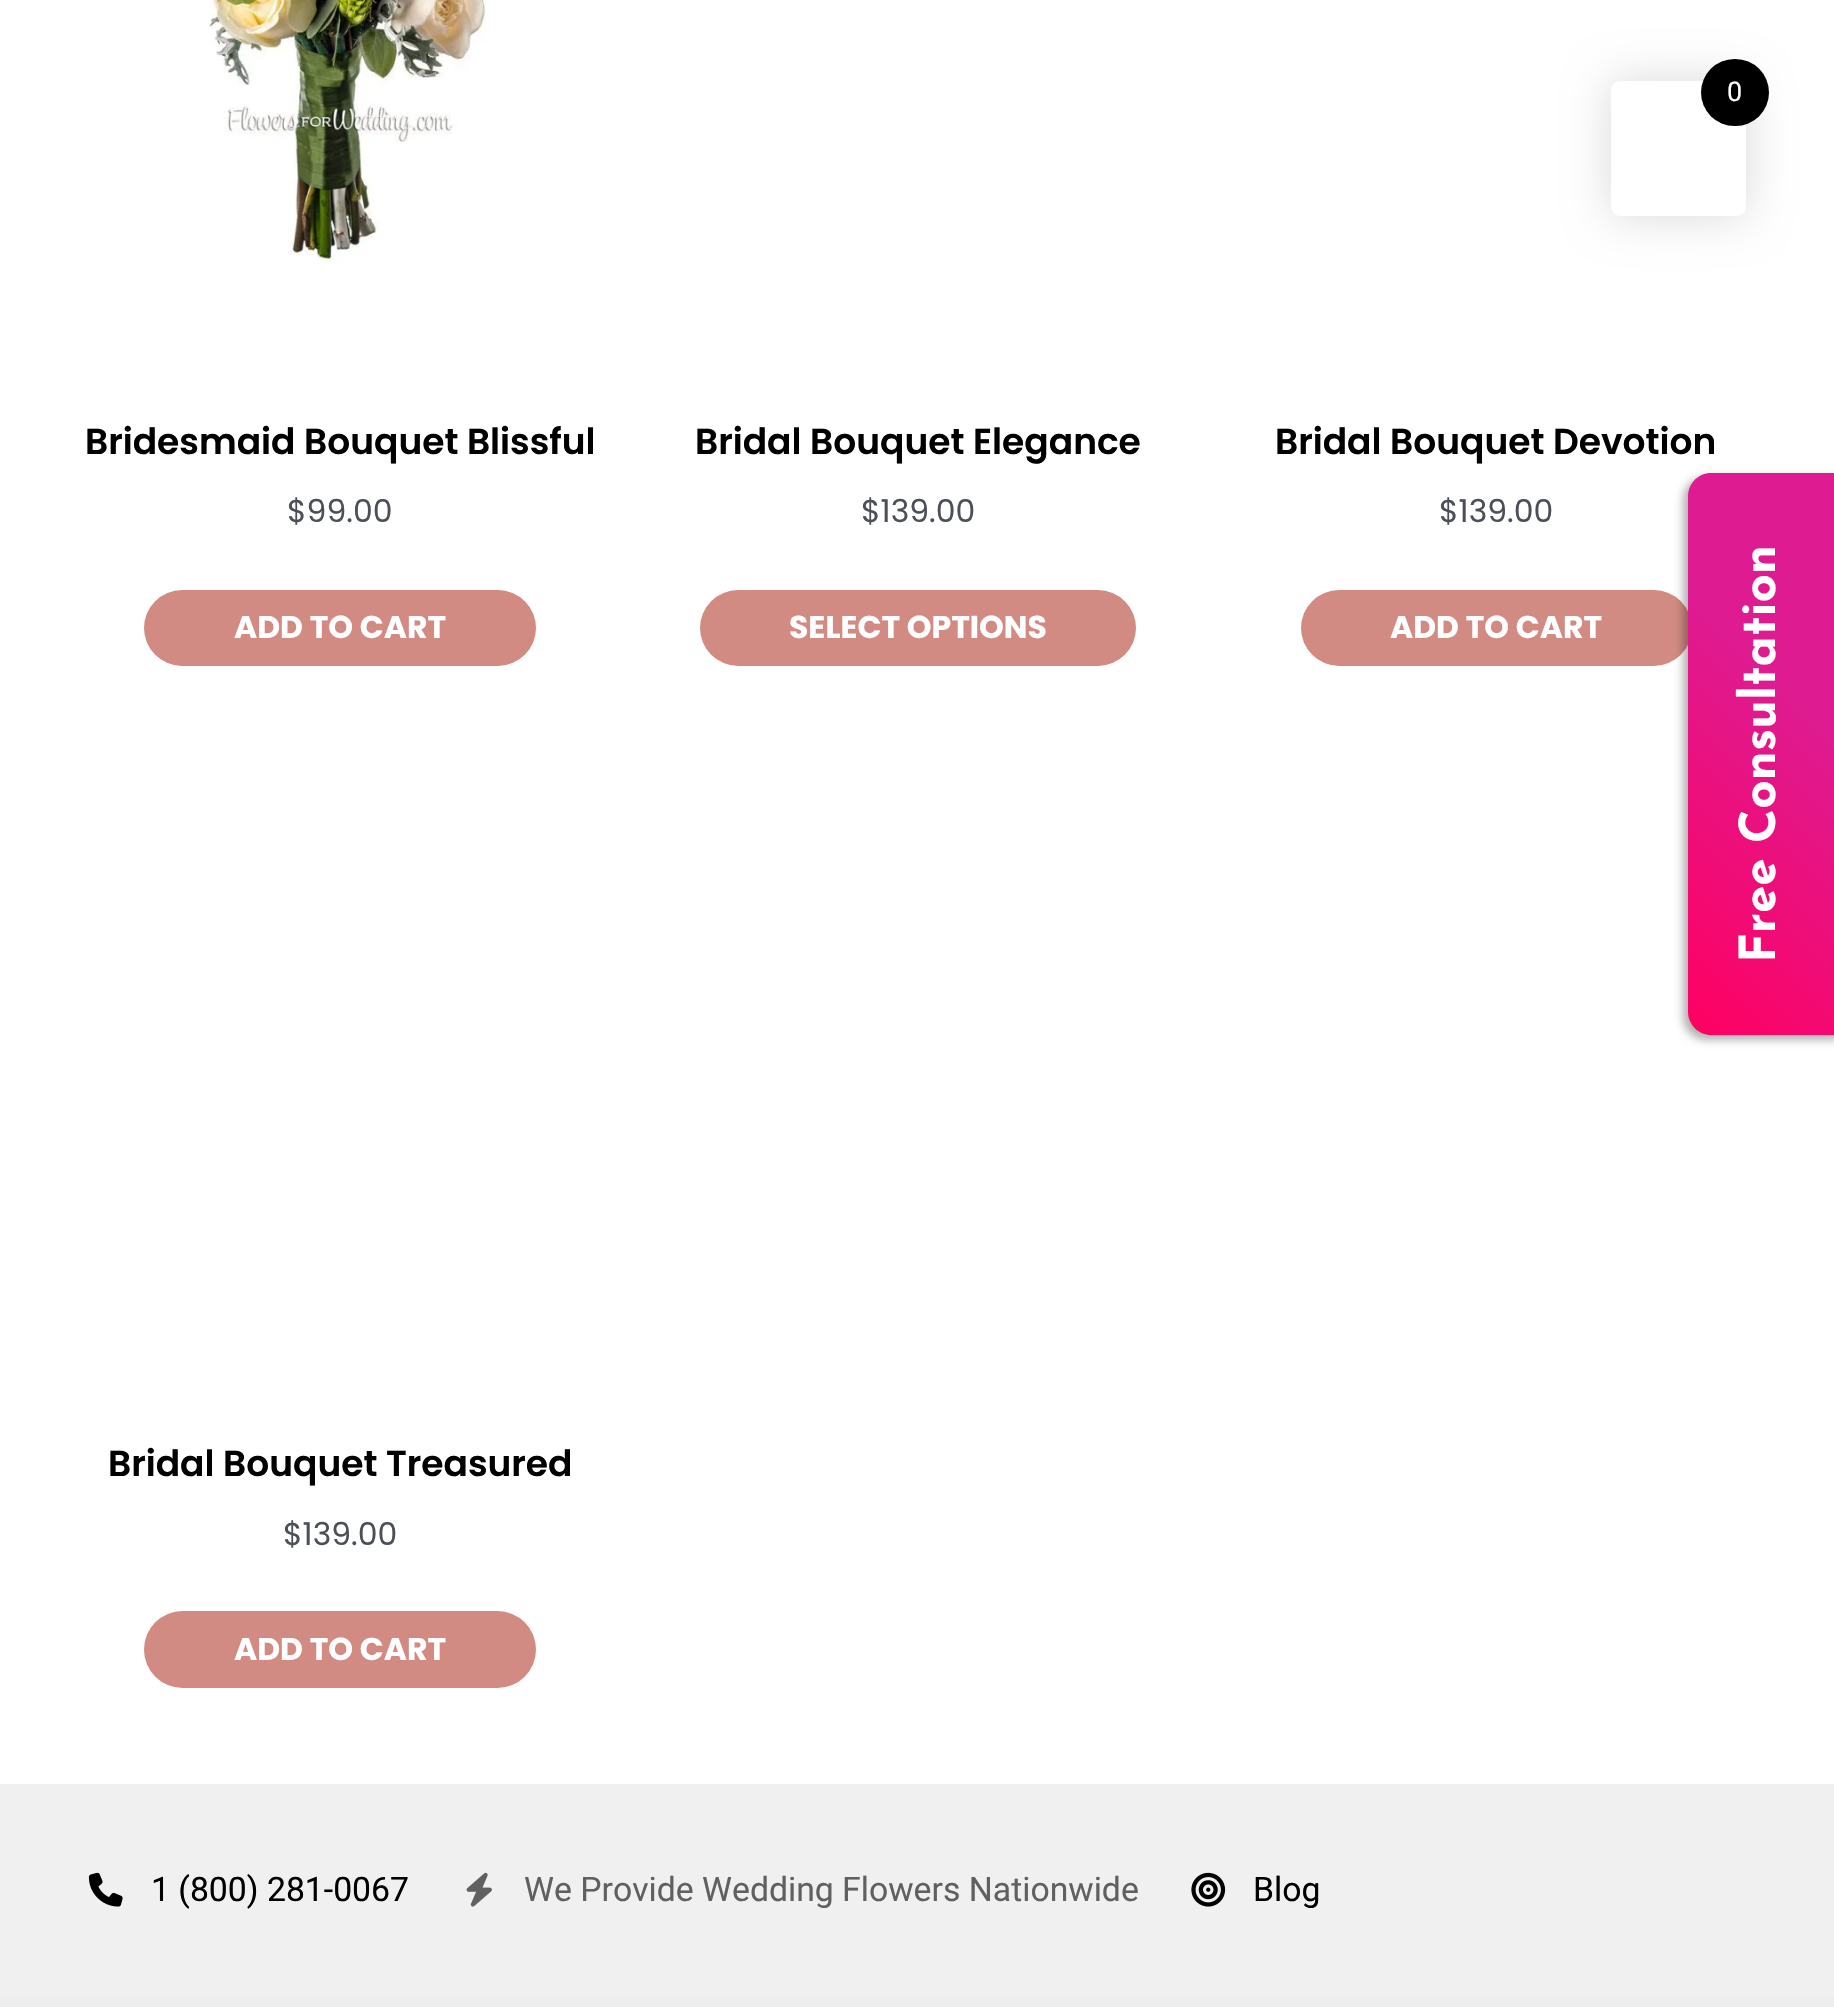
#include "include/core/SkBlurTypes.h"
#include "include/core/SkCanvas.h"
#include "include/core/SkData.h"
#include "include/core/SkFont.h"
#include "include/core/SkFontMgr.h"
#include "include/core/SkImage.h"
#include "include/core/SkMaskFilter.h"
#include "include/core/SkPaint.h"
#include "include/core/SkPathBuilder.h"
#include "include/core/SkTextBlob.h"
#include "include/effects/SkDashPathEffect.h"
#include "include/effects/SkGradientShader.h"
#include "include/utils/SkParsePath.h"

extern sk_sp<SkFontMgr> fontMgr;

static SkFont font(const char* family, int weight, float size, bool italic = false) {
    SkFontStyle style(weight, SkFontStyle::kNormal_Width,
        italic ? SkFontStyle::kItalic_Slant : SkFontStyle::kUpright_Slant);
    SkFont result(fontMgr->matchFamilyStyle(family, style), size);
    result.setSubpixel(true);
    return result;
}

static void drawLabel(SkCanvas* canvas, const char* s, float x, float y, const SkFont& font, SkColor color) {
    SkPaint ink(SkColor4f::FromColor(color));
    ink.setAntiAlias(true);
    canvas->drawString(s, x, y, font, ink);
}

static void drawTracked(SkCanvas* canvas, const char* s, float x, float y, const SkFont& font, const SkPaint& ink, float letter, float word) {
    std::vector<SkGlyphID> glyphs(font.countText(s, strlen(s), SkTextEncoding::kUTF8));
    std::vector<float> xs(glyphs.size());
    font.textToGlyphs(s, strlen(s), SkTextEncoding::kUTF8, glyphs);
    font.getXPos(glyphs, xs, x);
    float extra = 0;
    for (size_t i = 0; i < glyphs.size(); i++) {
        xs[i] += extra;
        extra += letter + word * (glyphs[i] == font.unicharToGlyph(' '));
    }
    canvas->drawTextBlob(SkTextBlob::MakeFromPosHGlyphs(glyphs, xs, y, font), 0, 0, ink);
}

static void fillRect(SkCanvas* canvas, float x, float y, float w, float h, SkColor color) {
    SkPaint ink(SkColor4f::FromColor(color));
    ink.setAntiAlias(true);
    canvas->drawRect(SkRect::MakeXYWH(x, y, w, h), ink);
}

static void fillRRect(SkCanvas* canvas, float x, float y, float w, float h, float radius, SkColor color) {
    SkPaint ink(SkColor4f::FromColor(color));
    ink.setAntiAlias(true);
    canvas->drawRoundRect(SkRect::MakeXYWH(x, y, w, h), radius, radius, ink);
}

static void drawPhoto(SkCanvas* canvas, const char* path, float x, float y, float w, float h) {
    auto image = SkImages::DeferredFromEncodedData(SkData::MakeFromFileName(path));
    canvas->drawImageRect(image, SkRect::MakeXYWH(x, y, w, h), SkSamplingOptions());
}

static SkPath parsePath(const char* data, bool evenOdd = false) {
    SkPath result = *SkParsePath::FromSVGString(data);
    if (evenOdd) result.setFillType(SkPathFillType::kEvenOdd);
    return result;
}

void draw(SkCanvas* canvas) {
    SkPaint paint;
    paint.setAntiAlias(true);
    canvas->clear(0xFFFFFFFF);
    paint.setColor(0x26000000);
    paint.setMaskFilter(SkMaskFilter::MakeBlur(kNormal_SkBlurStyle, 22.5f));
    canvas->drawRoundRect(SkRect::MakeXYWH(1611, 81, 135, 135), 9, 9, paint);
    paint.setMaskFilter(nullptr);
    fillRRect(canvas, 1611, 81, 135, 135, 9, 0xFFFFFFFF);
    fillRRect(canvas, 1701, 59, 68, 67, 33.5f, 0xFF000000);
    SkFont font1 = font("Roboto", 400, 27);
    drawLabel(canvas, "0", 1727, 101, font1, 0xFFFFFFFF);
    drawPhoto(canvas, "assets/img1.png", 209, 0, 278, 264);
    SkFont font2 = font("Poppins", 600, 36);
    drawLabel(canvas, "Bridesmaid Bouquet Blissful", 85, 454, font2, 0xFF000000);
    SkFont font3 = font("Poppins", 400, 31.5f);
    drawLabel(canvas, "$99.00", 287, 522, font3, 0xFF4B4F58);
    fillRRect(canvas, 144, 590, 392, 76, 38, 0xFFD18B82);
    SkFont font4 = font("Poppins", 700, 31.5f);
    drawLabel(canvas, "ADD TO CART", 234, 638, font4, 0xFFFFFFFF);
    drawLabel(canvas, "Bridal Bouquet Elegance", 695, 454, font2, 0xFF000000);
    drawLabel(canvas, "$139.00", 861, 522, font3, 0xFF4B4F58);
    fillRRect(canvas, 700, 590, 436, 76, 38, 0xFFD18B82);
    drawLabel(canvas, "SELECT OPTIONS", 789, 638, font4, 0xFFFFFFFF);
    drawLabel(canvas, "Bridal Bouquet Devotion", 1275, 454, font2, 0xFF000000);
    drawLabel(canvas, "$139.00", 1439, 522, font3, 0xFF4B4F58);
    fillRRect(canvas, 1301, 590, 391, 76, 38, 0xFFD18B82);
    drawLabel(canvas, "ADD TO CART", 1390, 638, font4, 0xFFFFFFFF);
    drawLabel(canvas, "Bridal Bouquet Treasured", 108, 1476, font2, 0xFF000000);
    drawLabel(canvas, "$139.00", 283, 1545, font3, 0xFF4B4F58);
    fillRRect(canvas, 144, 1611, 392, 77, 38.5f, 0xFFD18B82);
    drawLabel(canvas, "ADD TO CART", 234, 1660, font4, 0xFFFFFFFF);
    fillRect(canvas, 0, 1784, 1834, 212, 0xFFF0F0F0);
    drawPhoto(canvas, "assets/img2.png", 88, 1872, 35, 35);
    SkFont font5 = font("Roboto", 400, 33.75f);
    drawLabel(canvas, "1 (800) 281-0067", 151, 1901, font5, 0xFF000000);
    drawPhoto(canvas, "assets/img3.png", 466, 1872, 26, 35);
    drawLabel(canvas, "We Provide Wedding Flowers Nationwide", 524, 1901, font5, 0xFF606060);
    drawPhoto(canvas, "assets/img4.png", 1191, 1872, 35, 35);
    drawLabel(canvas, "Blog", 1253, 1901, font5, 0xFF000000);
    fillRect(canvas, 0, 1996, 1834, 11, 0xFFEEEEEE);
    paint.setColor(0x4D000000);
    paint.setMaskFilter(SkMaskFilter::MakeBlur(kNormal_SkBlurStyle, 4.5f));
    canvas->drawRoundRect(SkRect::MakeXYWH(1683, 477, 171, 563), 23, 23, paint);
    paint.setMaskFilter(nullptr);
    {
        const SkColor colors[] = {0xFFFF0061, 0xFFDE1B90};
        const float stops[] = {0, 0.6f};
        const SkPoint ends[] = {{1590, 937}, {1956, 570}};
        paint.setShader(SkGradientShader::MakeLinear(ends, colors, stops, 2, SkTileMode::kClamp));
        paint.setAlpha(255);
    }
    canvas->drawPath(parsePath("M1711 473H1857V1035H1711C1698.5 1035 1688 1024.5 1688 1012V496C1688 483.5 1698.5 473 1711 473Z"), paint);
    SkFont font6 = font("Josefin Sans", 700, 49.5f);
    paint.setShader(nullptr);
    paint.setColor(0xFFFFFFFF);
    canvas->save();
    canvas->rotate(-90, 1775, 963);
    drawTracked(canvas, "Free Consultation", 1775, 963, font6, paint, 0, -1);
    canvas->restore();
}
